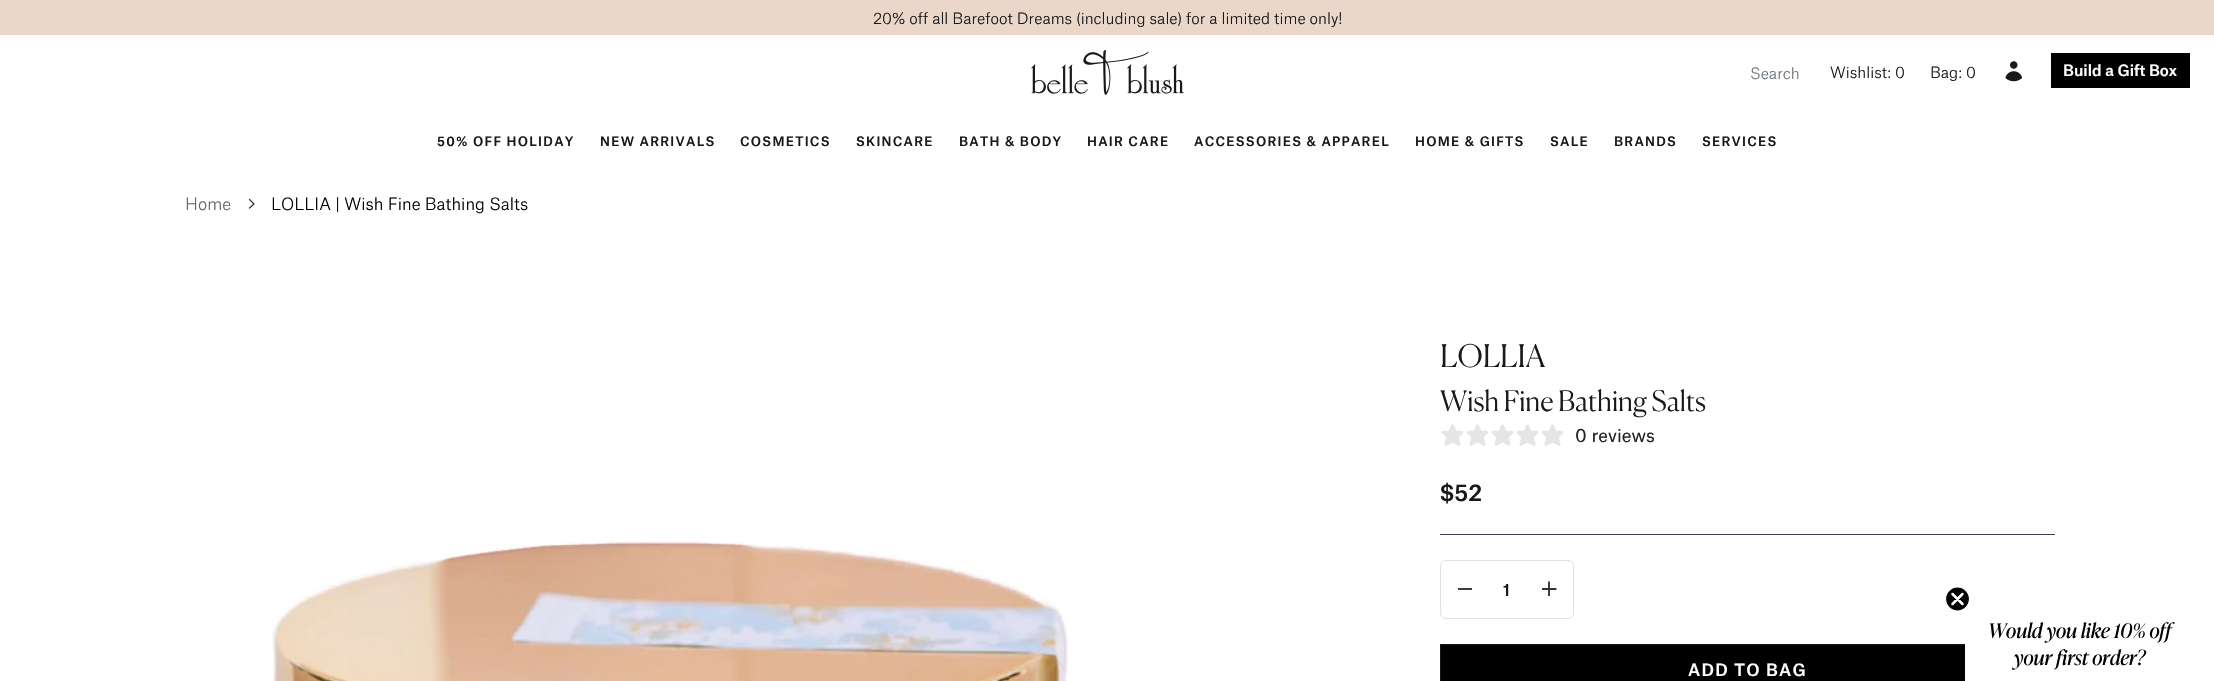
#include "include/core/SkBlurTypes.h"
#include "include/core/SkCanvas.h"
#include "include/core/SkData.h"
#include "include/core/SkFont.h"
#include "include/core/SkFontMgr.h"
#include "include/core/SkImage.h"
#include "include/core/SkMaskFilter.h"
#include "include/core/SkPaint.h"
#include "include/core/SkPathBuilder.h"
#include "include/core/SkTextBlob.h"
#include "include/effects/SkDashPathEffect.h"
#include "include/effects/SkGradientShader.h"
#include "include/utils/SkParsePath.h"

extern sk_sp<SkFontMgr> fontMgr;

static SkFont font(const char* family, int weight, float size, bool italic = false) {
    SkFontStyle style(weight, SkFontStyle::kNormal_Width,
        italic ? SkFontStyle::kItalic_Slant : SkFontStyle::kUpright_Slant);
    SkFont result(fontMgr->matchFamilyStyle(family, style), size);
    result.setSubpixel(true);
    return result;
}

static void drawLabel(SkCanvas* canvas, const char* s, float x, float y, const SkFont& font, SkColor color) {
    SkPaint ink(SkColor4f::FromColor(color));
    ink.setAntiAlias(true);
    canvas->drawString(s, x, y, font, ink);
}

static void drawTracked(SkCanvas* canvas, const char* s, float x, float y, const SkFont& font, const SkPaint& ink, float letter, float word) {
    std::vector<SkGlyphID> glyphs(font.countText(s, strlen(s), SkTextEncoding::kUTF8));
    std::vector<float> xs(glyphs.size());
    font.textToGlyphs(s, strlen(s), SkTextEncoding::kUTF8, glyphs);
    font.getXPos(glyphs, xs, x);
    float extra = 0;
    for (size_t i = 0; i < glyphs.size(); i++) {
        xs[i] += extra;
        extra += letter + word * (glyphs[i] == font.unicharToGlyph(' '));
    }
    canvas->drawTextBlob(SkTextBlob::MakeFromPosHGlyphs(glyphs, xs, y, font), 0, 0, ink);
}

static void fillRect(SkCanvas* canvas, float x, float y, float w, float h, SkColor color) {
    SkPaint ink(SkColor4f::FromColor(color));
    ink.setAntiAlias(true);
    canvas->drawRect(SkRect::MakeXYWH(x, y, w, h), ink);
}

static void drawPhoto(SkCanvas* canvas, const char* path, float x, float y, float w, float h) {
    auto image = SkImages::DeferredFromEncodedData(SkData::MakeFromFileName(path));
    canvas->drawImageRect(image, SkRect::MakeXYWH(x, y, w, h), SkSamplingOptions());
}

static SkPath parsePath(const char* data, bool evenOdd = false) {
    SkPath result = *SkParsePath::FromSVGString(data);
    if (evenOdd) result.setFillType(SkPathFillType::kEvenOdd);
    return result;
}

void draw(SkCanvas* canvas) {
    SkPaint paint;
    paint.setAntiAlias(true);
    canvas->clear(0xFFFFFFFF);
    fillRect(canvas, 0, 0, 2214, 35, 0xFFEAD7CA);
    SkFont font1 = font("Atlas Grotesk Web", 300, 15);
    drawLabel(canvas, "20% off all Barefoot Dreams (including sale) for a limited time only!", 873, 24, font1, 0xFF191919);
    drawPhoto(canvas, "assets/img1.png", 1031, 50, 153, 45);
    drawLabel(canvas, "Search", 1750, 79, font1, 0xFF6C757D);
    drawLabel(canvas, "Wishlist: 0", 1830, 78, font1, 0xFF191919);
    drawLabel(canvas, "Bag: 0", 1930, 78, font1, 0xFF191919);
    drawPhoto(canvas, "assets/img2.png", 2005, 61, 17, 21);
    fillRect(canvas, 2051, 53, 139, 35, 0xFF000000);
    SkFont font2 = font("Atlas Grotesk Web", 500, 15);
    drawLabel(canvas, "Build a Gift Box", 2063, 76, font2, 0xFFFFFFFF);
    SkFont font3 = font("Atlas Grotesk Web", 500, 12.5f);
    paint.setColor(0xFF191919);
    drawTracked(canvas, "50% OFF HOLIDAY", 437, 146, font3, paint, 1.25f, 0);
    drawTracked(canvas, "NEW ARRIVALS", 600, 146, font3, paint, 1.25f, 0);
    drawTracked(canvas, "COSMETICS", 740, 146, font3, paint, 1.25f, 0);
    drawTracked(canvas, "SKINCARE", 856, 146, font3, paint, 1.25f, 0);
    drawTracked(canvas, "BATH & BODY", 959, 146, font3, paint, 1.25f, 0);
    drawTracked(canvas, "HAIR CARE", 1087, 146, font3, paint, 1.25f, 0);
    drawTracked(canvas, "ACCESSORIES & APPAREL", 1194, 146, font3, paint, 1.25f, 0);
    drawTracked(canvas, "HOME & GIFTS", 1415, 146, font3, paint, 1.25f, 0);
    drawTracked(canvas, "SALE", 1550, 146, font3, paint, 1.25f, 0);
    drawTracked(canvas, "BRANDS", 1614, 146, font3, paint, 1.25f, 0);
    drawTracked(canvas, "SERVICES", 1702, 146, font3, paint, 1.25f, 0);
    SkFont font4 = font("Atlas Grotesk Web", 300, 16.25f);
    drawLabel(canvas, "Home", 185, 210, font4, 0xFF666666);
    paint.setStroke(true);
    paint.setStrokeWidth(1.2f);
    paint.setStrokeCap(SkPaint::kRound_Cap);
    paint.setStrokeJoin(SkPaint::kRound_Join);
    paint.setColor(0xFF333333);
    canvas->drawPath(parsePath("M249.5 199.5L254 204L249.5 208"), paint);
    drawLabel(canvas, "LOLLIA | Wish Fine Bathing Salts", 271, 210, font4, 0xFF000000);
    drawPhoto(canvas, "assets/img3.png", 272, 540, 796, 141);
    SkFont font5 = font("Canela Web", 300, 31);
    drawLabel(canvas, "LOLLIA", 1440, 367, font5, 0xFF191919);
    SkFont font6 = font("Canela Web", 300, 28.1f);
    drawLabel(canvas, "Wish Fine Bathing Salts", 1440, 411, font6, 0xFF191919);
    drawPhoto(canvas, "assets/img4.png", 1441, 424, 23, 22);
    drawPhoto(canvas, "assets/img4.png", 1466, 424, 23, 22);
    drawPhoto(canvas, "assets/img4.png", 1491, 424, 23, 22);
    drawPhoto(canvas, "assets/img4.png", 1516, 424, 23, 22);
    drawPhoto(canvas, "assets/img4.png", 1541, 424, 23, 22);
    SkFont font7 = font("Atlas Grotesk Web", 400, 17.5f);
    drawLabel(canvas, "0 reviews", 1575, 442, font7, 0xFF202223);
    SkFont font8 = font("Atlas Grotesk Web", 500, 22);
    drawLabel(canvas, "$52", 1440, 501, font8, 0xFF191919);
    fillRect(canvas, 1440, 534, 615, 1, 0xFF374151);
    paint.setStrokeWidth(1);
    paint.setStrokeCap(SkPaint::kButt_Cap);
    paint.setStrokeJoin(SkPaint::kMiter_Join);
    paint.setColor(0xFFDEE2E6);
    canvas->drawRoundRect(SkRect::MakeXYWH(1440.5f, 560.5f, 133, 58), 5.5f, 5.5f, paint);
    fillRect(canvas, 1458, 588, 14, 2, 0xFF3D3D3D);
    SkFont font9 = font("Atlas Grotesk Web", 500, 16.25f);
    drawLabel(canvas, "1", 1503, 596, font9, 0xFF191919);
    paint.setStrokeWidth(1.9f);
    paint.setStrokeCap(SkPaint::kSquare_Cap);
    paint.setColor(0xFF333333);
    canvas->drawPath(parsePath("M1543 589H1555.5M1549 582.5V595"), paint);
    fillRect(canvas, 1441, 645, 524, 36, 0xFF000000);
    paint.setStrokeWidth(1);
    paint.setStrokeCap(SkPaint::kButt_Cap);
    paint.setColor(0xFF191919);
    canvas->drawRect(SkRect::MakeXYWH(1440.5f, 644.5f, 614, 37), paint);
    paint.setStroke(false);
    paint.setColor(0xFFFFFFFF);
    drawTracked(canvas, "ADD TO BAG", 1688, 676, font9, paint, 1.25f, 0);
    canvas->drawPath(parsePath("M1975 606H2185C2190.5 606 2195 610.5 2195 616V681H1965V616C1965 610.5 1969.5 606 1975 606Z"), paint);
    paint.setColor(0xFF000000);
    canvas->drawCircle(1957.5f, 599, 12, paint);
    canvas->save();
    canvas->clipRect(SkRect::MakeXYWH(1945, 586, 25, 25));
    paint.setStroke(true);
    paint.setStrokeWidth(1.2f);
    paint.setColor(0xFFFFFFFF);
    canvas->drawCircle(1957.5f, 599, 12, paint);
    canvas->restore();
    paint.setStrokeWidth(2.5f);
    paint.setStrokeCap(SkPaint::kRound_Cap);
    paint.setStrokeJoin(SkPaint::kRound_Join);
    canvas->drawPath(parsePath("M1952.5 594L1962.5 604M1952.5 604L1962.5 594Z"), paint);
    SkFont font10 = font("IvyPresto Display", 400, 20, true);
    drawLabel(canvas, "Would you like 10% off", 1988, 638, font10, 0xFF000000);
    drawLabel(canvas, "your first order?", 2014, 665, font10, 0xFF000000);
}
